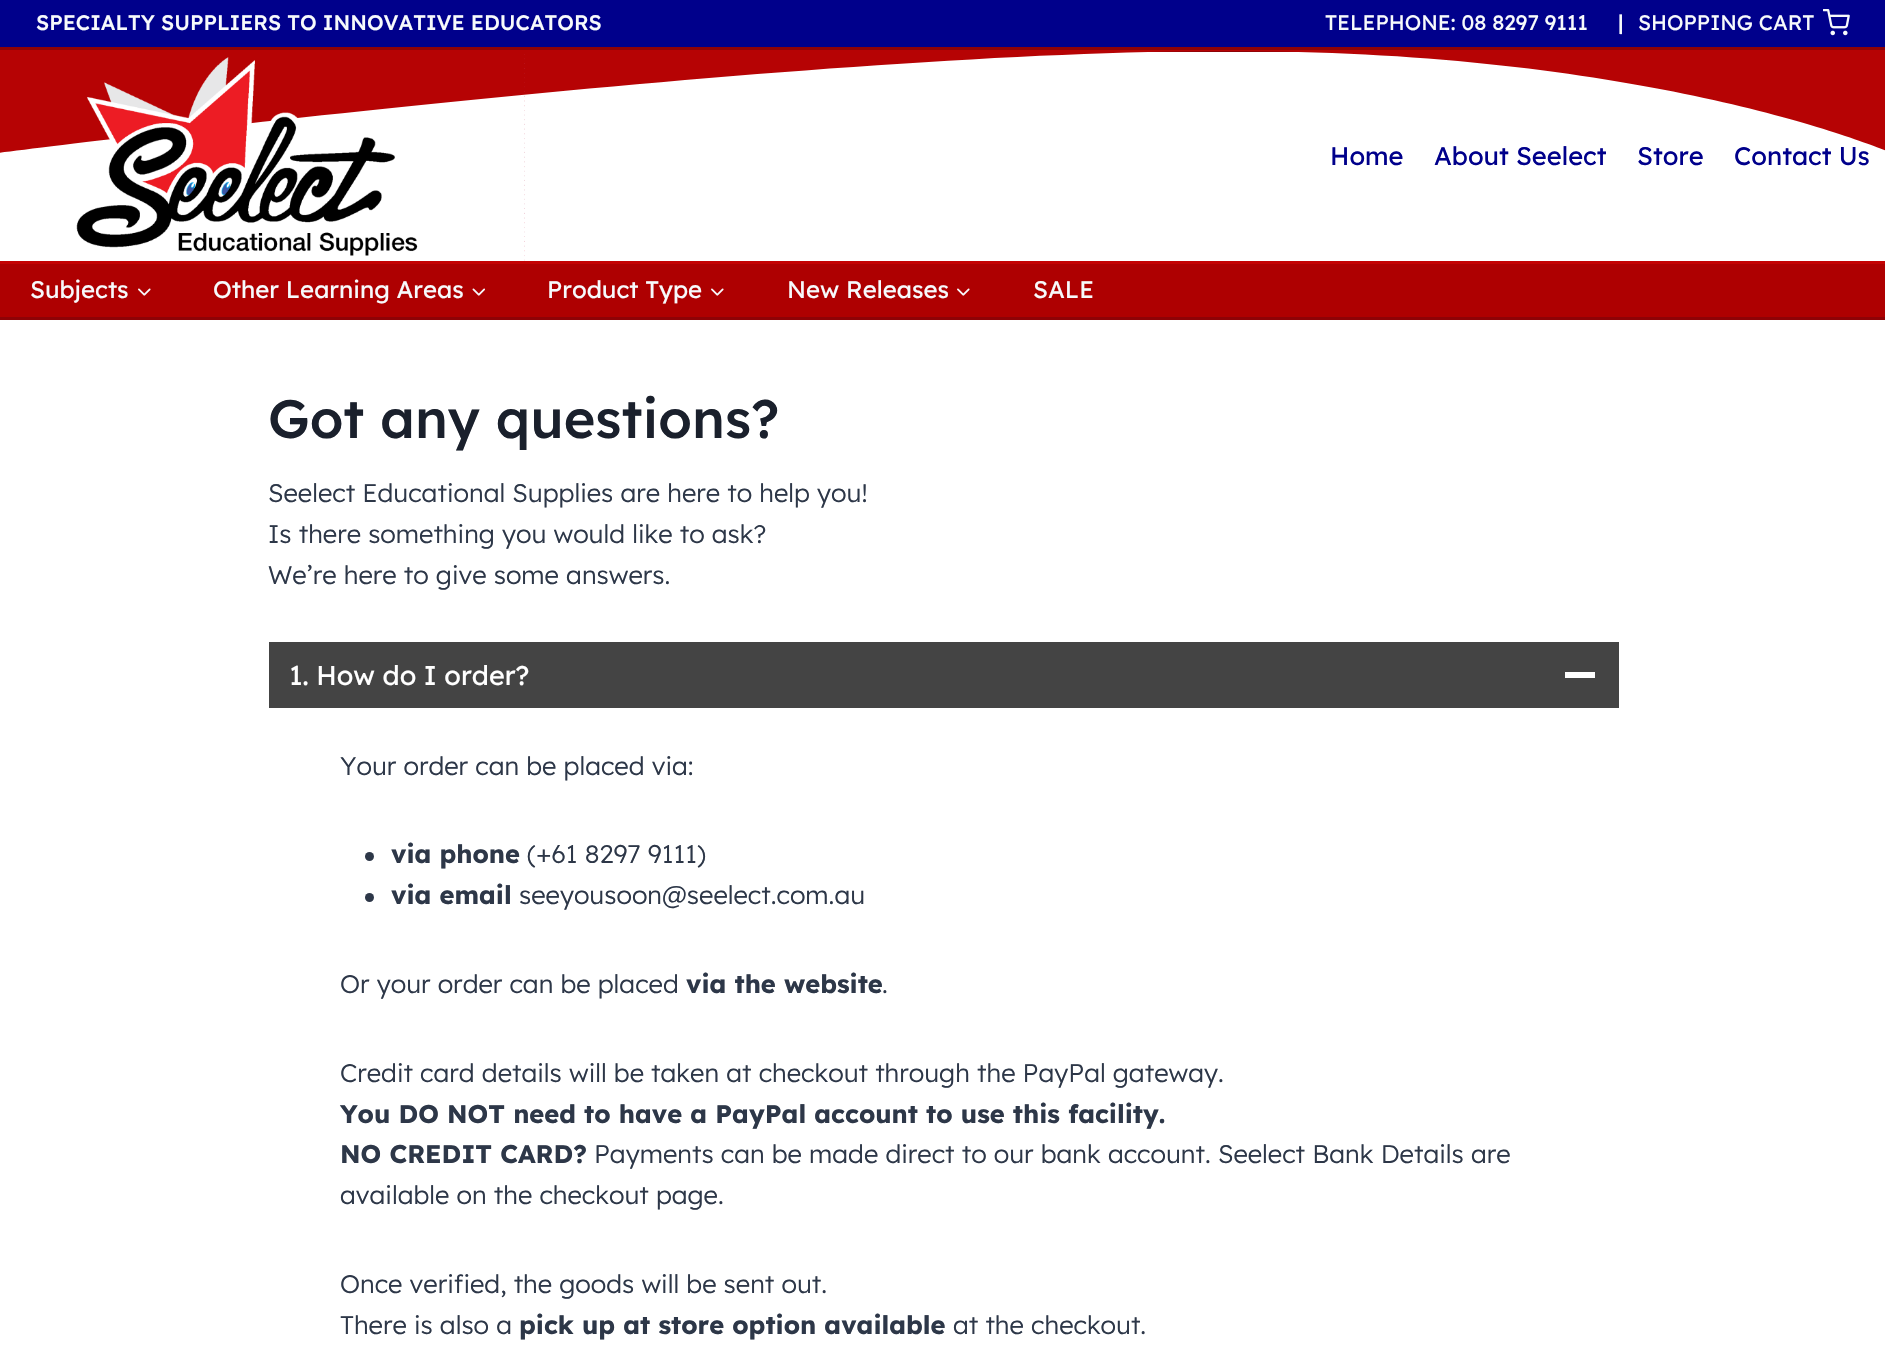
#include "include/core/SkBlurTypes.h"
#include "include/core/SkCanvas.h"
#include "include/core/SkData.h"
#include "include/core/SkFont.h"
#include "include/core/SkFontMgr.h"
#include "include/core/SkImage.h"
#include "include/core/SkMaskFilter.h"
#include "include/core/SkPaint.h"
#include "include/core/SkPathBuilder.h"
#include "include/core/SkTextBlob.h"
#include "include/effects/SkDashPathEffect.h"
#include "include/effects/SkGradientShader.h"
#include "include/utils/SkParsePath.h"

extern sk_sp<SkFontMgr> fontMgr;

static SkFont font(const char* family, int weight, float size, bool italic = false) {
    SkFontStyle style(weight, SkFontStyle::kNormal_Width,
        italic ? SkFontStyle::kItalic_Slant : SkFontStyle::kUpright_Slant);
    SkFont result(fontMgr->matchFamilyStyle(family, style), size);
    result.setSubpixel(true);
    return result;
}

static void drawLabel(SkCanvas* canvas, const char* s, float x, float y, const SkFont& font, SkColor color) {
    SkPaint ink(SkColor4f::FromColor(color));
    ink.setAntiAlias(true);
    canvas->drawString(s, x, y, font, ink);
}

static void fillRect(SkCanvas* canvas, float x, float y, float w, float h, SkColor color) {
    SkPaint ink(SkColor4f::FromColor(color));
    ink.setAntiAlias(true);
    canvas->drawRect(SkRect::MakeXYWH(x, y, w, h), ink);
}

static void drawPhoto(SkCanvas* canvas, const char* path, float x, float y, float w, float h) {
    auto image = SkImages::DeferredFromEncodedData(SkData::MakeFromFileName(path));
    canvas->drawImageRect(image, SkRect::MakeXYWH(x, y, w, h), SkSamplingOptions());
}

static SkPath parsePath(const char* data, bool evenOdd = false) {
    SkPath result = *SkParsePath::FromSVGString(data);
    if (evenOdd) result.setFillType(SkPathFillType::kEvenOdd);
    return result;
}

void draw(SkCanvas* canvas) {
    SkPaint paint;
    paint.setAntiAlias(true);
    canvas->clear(0xFFFFFFFF);
    fillRect(canvas, 0, 0, 1885, 47, 0xFF00008B);
    fillRect(canvas, 0, 47, 1885, 5, 0xFF8E0206);
    SkFont font1 = font("Lexend", 500, 21);
    drawLabel(canvas, "SPECIALTY SUPPLIERS TO INNOVATIVE EDUCATORS", 36, 30, font1, 0xFFF7FAFC);
    SkFont font2 = font("Lexend", 400, 21);
    drawLabel(canvas, "TELEPHONE: 08 8297 9111", 1325, 30, font2, 0xFFF7FAFC);
    drawLabel(canvas, "|", 1618, 30, font1, 0xFFF7FAFC);
    drawLabel(canvas, "SHOPPING CART", 1638, 30, font2, 0xFFF7FAFC);
    drawPhoto(canvas, "assets/img1.png", 1823, 9, 27, 27);
    SkFont font3 = font("Lexend", 400, 25.5f);
    drawLabel(canvas, "Home", 1330, 165, font3, 0xFF00008B);
    drawLabel(canvas, "About Seelect", 1434, 165, font3, 0xFF00008B);
    drawLabel(canvas, "Store", 1637, 165, font3, 0xFF00008B);
    drawLabel(canvas, "Contact Us", 1734, 165, font3, 0xFF00008B);
    canvas->save();
    canvas->clipRect(SkRect::MakeXYWH(0, 50, 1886, 105));
    paint.setColor(0xFFB60304);
    canvas->drawPath(parsePath("M-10 154C-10 154 792 51 1228 51C1664 51 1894 154 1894 154V49H-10Z"), paint);
    canvas->restore();
    drawPhoto(canvas, "assets/img2.png", 76, 54, 449, 207);
    fillRect(canvas, 0, 264, 1885, 53, 0xFFAE0001);
    fillRect(canvas, 0, 261, 1885, 3, 0xFFC40203);
    fillRect(canvas, 0, 317, 1885, 3, 0xFF8E0206);
    SkFont font4 = font("Lexend", 400, 24);
    drawLabel(canvas, "Subjects", 30, 298, font4, 0xFFF7FAFC);
    drawPhoto(canvas, "assets/img3.png", 138, 288, 13, 8);
    drawLabel(canvas, "Other Learning Areas", 213, 298, font4, 0xFFF7FAFC);
    drawPhoto(canvas, "assets/img4.png", 472, 288, 13, 8);
    drawLabel(canvas, "Product Type", 547, 298, font4, 0xFFF7FAFC);
    drawPhoto(canvas, "assets/img3.png", 711, 288, 13, 8);
    drawLabel(canvas, "New Releases", 787, 298, font4, 0xFFF7FAFC);
    drawPhoto(canvas, "assets/img3.png", 957, 288, 13, 8);
    drawLabel(canvas, "SALE", 1033, 298, font4, 0xFFF7FAFC);
    SkFont font5 = font("Lexend", 500, 54);
    drawLabel(canvas, "Got any questions?", 268, 438, font5, 0xFF1A202C);
    SkFont font6 = font("Lexend", 300, 25.5f);
    drawLabel(canvas, "Seelect Educational Supplies are here to help you!", 268, 502, font6, 0xFF2D3748);
    drawLabel(canvas, "Is there something you would like to ask?", 268, 543, font6, 0xFF2D3748);
    drawLabel(canvas, "We’re here to give some answers.", 268, 584, font6, 0xFF2D3748);
    fillRect(canvas, 269, 642, 1350, 66, 0xFF444444);
    SkFont font7 = font("Lexend", 400, 27);
    drawLabel(canvas, "1. How do I order?", 289, 685, font7, 0xFFFFFFFF);
    fillRect(canvas, 1565, 672, 30, 6, 0xFFFFFFFF);
    drawLabel(canvas, "Your order can be placed via:", 340, 775, font6, 0xFF2D3748);
    paint.setColor(0xFF2D3748);
    canvas->drawCircle(369.5f, 856.5f, 4.5f, paint);
    SkFont font8 = font("Lexend", 700, 25.5f);
    drawLabel(canvas, "via phone", 391, 863, font8, 0xFF2D3748);
    drawLabel(canvas, "(+61 8297 9111)", 527, 863, font6, 0xFF2D3748);
    canvas->drawCircle(369.5f, 897.5f, 4.5f, paint);
    drawLabel(canvas, "via email", 391, 904, font8, 0xFF2D3748);
    drawLabel(canvas, "seeyousoon@seelect.com.au", 519, 904, font6, 0xFF2D3748);
    drawLabel(canvas, "Or your order can be placed", 340, 993, font6, 0xFF2D3748);
    drawLabel(canvas, "via the website", 686, 993, font8, 0xFF2D3748);
    drawLabel(canvas, ".", 882, 993, font6, 0xFF2D3748);
    drawLabel(canvas, "Credit card details will be taken at checkout through the PayPal gateway.", 340, 1082, font6, 0xFF2D3748);
    drawLabel(canvas, "You DO NOT need to have a PayPal account to use this facility.", 340, 1123, font8, 0xFF2D3748);
    drawLabel(canvas, "NO CREDIT CARD?", 340, 1163, font8, 0xFF2D3748);
    drawLabel(canvas, "Payments can be made direct to our bank account. Seelect Bank Details are", 594, 1163, font6, 0xFF2D3748);
    drawLabel(canvas, "available on the checkout page.", 340, 1204, font6, 0xFF2D3748);
    drawLabel(canvas, "Once verified, the goods will be sent out.", 340, 1293, font6, 0xFF2D3748);
    drawLabel(canvas, "There is also a", 340, 1334, font6, 0xFF2D3748);
    drawLabel(canvas, "pick up at store option available", 519, 1334, font8, 0xFF2D3748);
    drawLabel(canvas, "at the checkout.", 953, 1334, font6, 0xFF2D3748);
}
